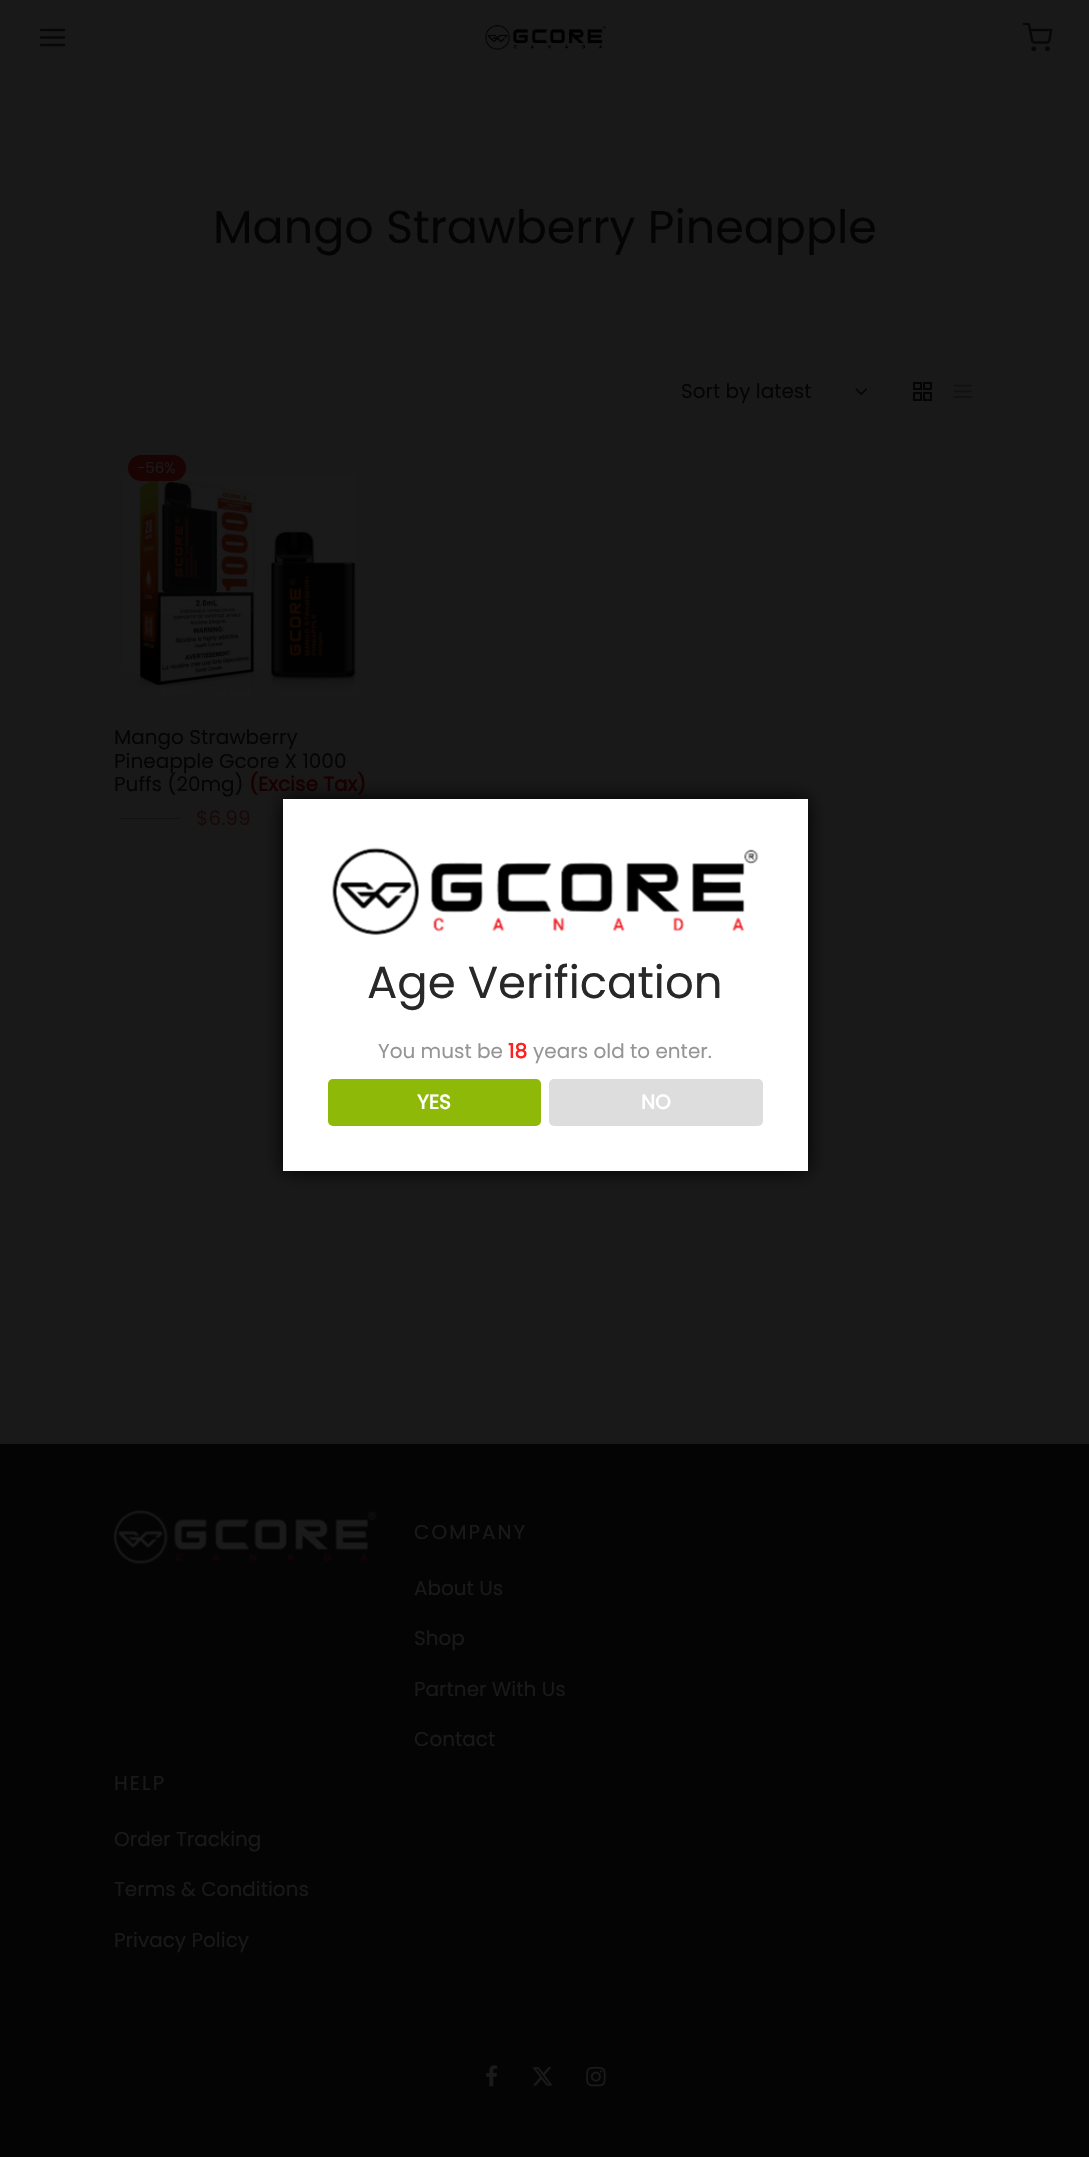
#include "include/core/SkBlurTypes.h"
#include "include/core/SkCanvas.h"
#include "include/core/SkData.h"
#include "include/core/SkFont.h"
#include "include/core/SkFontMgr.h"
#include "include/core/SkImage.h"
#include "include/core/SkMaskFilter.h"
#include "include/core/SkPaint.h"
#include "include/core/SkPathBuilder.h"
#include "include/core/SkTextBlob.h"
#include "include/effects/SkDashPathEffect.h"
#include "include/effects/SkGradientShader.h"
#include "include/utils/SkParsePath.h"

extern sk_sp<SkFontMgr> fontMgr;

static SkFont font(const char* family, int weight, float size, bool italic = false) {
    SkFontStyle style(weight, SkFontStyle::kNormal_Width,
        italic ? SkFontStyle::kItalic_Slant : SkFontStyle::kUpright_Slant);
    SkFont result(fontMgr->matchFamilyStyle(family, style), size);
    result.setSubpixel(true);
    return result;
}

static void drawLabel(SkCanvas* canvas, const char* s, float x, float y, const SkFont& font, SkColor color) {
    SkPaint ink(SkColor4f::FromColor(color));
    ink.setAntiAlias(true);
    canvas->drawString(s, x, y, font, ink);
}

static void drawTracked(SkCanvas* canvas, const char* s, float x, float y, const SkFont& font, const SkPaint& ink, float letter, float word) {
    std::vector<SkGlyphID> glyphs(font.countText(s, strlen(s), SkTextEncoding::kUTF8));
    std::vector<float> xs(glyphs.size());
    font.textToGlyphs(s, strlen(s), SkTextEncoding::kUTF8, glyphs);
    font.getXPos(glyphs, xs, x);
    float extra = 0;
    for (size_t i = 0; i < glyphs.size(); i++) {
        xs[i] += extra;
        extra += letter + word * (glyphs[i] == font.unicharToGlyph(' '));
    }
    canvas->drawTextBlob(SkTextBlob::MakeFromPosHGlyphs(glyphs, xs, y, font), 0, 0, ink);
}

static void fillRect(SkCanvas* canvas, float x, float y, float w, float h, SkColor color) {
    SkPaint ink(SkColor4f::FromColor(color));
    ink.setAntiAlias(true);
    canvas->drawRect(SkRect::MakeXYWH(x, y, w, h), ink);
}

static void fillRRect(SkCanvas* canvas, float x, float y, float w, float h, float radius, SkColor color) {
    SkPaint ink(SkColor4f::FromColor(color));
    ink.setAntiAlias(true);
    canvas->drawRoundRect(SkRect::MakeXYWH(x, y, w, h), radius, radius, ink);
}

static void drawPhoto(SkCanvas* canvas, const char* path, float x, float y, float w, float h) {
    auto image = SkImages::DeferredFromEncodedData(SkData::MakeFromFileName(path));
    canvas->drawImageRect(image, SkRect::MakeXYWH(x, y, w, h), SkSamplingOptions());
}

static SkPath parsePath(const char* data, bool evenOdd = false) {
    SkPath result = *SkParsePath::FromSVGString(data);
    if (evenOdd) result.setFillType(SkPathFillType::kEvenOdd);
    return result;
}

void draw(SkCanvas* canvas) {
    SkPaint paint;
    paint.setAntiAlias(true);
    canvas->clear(0xFF191919);
    paint.setStroke(true);
    paint.setStrokeWidth(2.5f);
    paint.setStrokeCap(SkPaint::kRound_Cap);
    paint.setStrokeJoin(SkPaint::kRound_Join);
    paint.setColor(0xFF070707);
    canvas->drawPath(parsePath("M41 37.5H64M41 30H64M41 45H64"), paint);
    drawPhoto(canvas, "assets/img1.png", 485, 24, 122, 26);
    drawPhoto(canvas, "assets/img2.png", 1023, 23, 30, 29);
    SkFont font1 = font("Poppins", 400, 46);
    drawLabel(canvas, "Mango Strawberry Pineapple", 213, 243, font1, 0xFF040404);
    SkFont font2 = font("Poppins", 400, 20);
    drawLabel(canvas, "Sort by latest", 681, 398, font2, 0xFF040404);
    drawPhoto(canvas, "assets/img3.png", 855, 388, 12, 7);
    paint.setStrokeWidth(2);
    paint.setStrokeCap(SkPaint::kButt_Cap);
    paint.setStrokeJoin(SkPaint::kMiter_Join);
    paint.setColor(0xFF040404);
    canvas->drawRect(SkRect::MakeXYWH(914, 383, 7, 6), paint);
    canvas->drawRect(SkRect::MakeXYWH(924, 383, 7, 6), paint);
    canvas->drawRect(SkRect::MakeXYWH(914, 393, 7, 7), paint);
    canvas->drawRect(SkRect::MakeXYWH(924, 393, 7, 7), paint);
    drawPhoto(canvas, "assets/img4.png", 953, 384, 19, 14);
    drawPhoto(canvas, "assets/img5.png", 122, 474, 235, 222);
    fillRRect(canvas, 128, 455, 58, 26, 13, 0xFF190303);
    SkFont font3 = font("Poppins", 400, 15);
    drawLabel(canvas, "-56%", 137, 473, font3, 0xFF191919);
    drawLabel(canvas, "Mango Strawberry", 114, 744, font2, 0xFF040404);
    drawLabel(canvas, "Pineapple Gcore X 1000", 114, 768, font2, 0xFF040404);
    drawLabel(canvas, "Puffs (20mg)", 114, 791, font2, 0xFF040404);
    SkFont font4 = font("Poppins", 700, 20);
    drawLabel(canvas, "(Excise Tax)", 249, 791, font4, 0xFF190000);
    fillRect(canvas, 120, 818, 61, 1, 0xFF121212);
    drawLabel(canvas, "$6.99", 196, 825, font2, 0xFF180909);
    fillRect(canvas, 0, 1444, 1089, 713, 0xFF040404);
    drawPhoto(canvas, "assets/img6.png", 113, 1509, 264, 56);
    paint.setStroke(false);
    paint.setColor(0xFF191919);
    drawTracked(canvas, "COMPANY", 414, 1539, font2, paint, 2, 0);
    drawLabel(canvas, "About Us", 414, 1595, font2, 0xFF191919);
    drawLabel(canvas, "Shop", 414, 1645, font2, 0xFF191919);
    drawLabel(canvas, "Partner With Us", 414, 1696, font2, 0xFF191919);
    drawLabel(canvas, "Contact", 414, 1746, font2, 0xFF191919);
    drawTracked(canvas, "HELP", 114, 1790, font2, paint, 2, 0);
    drawLabel(canvas, "Order Tracking", 114, 1846, font2, 0xFF191919);
    drawLabel(canvas, "Terms & Conditions", 114, 1896, font2, 0xFF191919);
    drawLabel(canvas, "Privacy Policy", 114, 1947, font2, 0xFF191919);
    drawPhoto(canvas, "assets/img7.png", 486, 2065, 12, 22);
    drawPhoto(canvas, "assets/img8.png", 532, 2067, 21, 19);
    drawPhoto(canvas, "assets/img9.png", 586, 2066, 20, 21);
    paint.setColor(0xFF000000);
    paint.setMaskFilter(SkMaskFilter::MakeBlur(kNormal_SkBlurStyle, 9.5f));
    canvas->drawRect(SkRect::MakeXYWH(283, 799, 525, 372), paint);
    paint.setMaskFilter(nullptr);
    fillRect(canvas, 283, 799, 525, 372, 0xFFFFFFFF);
    drawPhoto(canvas, "assets/img10.png", 332, 847, 427, 89);
    SkFont font5 = font("Poppins", 400, 45);
    drawLabel(canvas, "Age Verification", 367, 998, font5, 0xFF282828);
    drawLabel(canvas, "You must be", 378, 1058, font2, 0xFF959595);
    drawLabel(canvas, "18", 508, 1058, font4, 0xFFFF1F1F);
    drawLabel(canvas, "years old to enter.", 533, 1058, font2, 0xFF959595);
    fillRRect(canvas, 328, 1079, 213, 47, 5, 0xFF8EB908);
    drawLabel(canvas, "YES", 417, 1109, font4, 0xFFFFFFFF);
    fillRRect(canvas, 549, 1079, 214, 47, 5, 0xFFDDDDDD);
    drawLabel(canvas, "NO", 641, 1109, font4, 0xFFFFFFFF);
}
